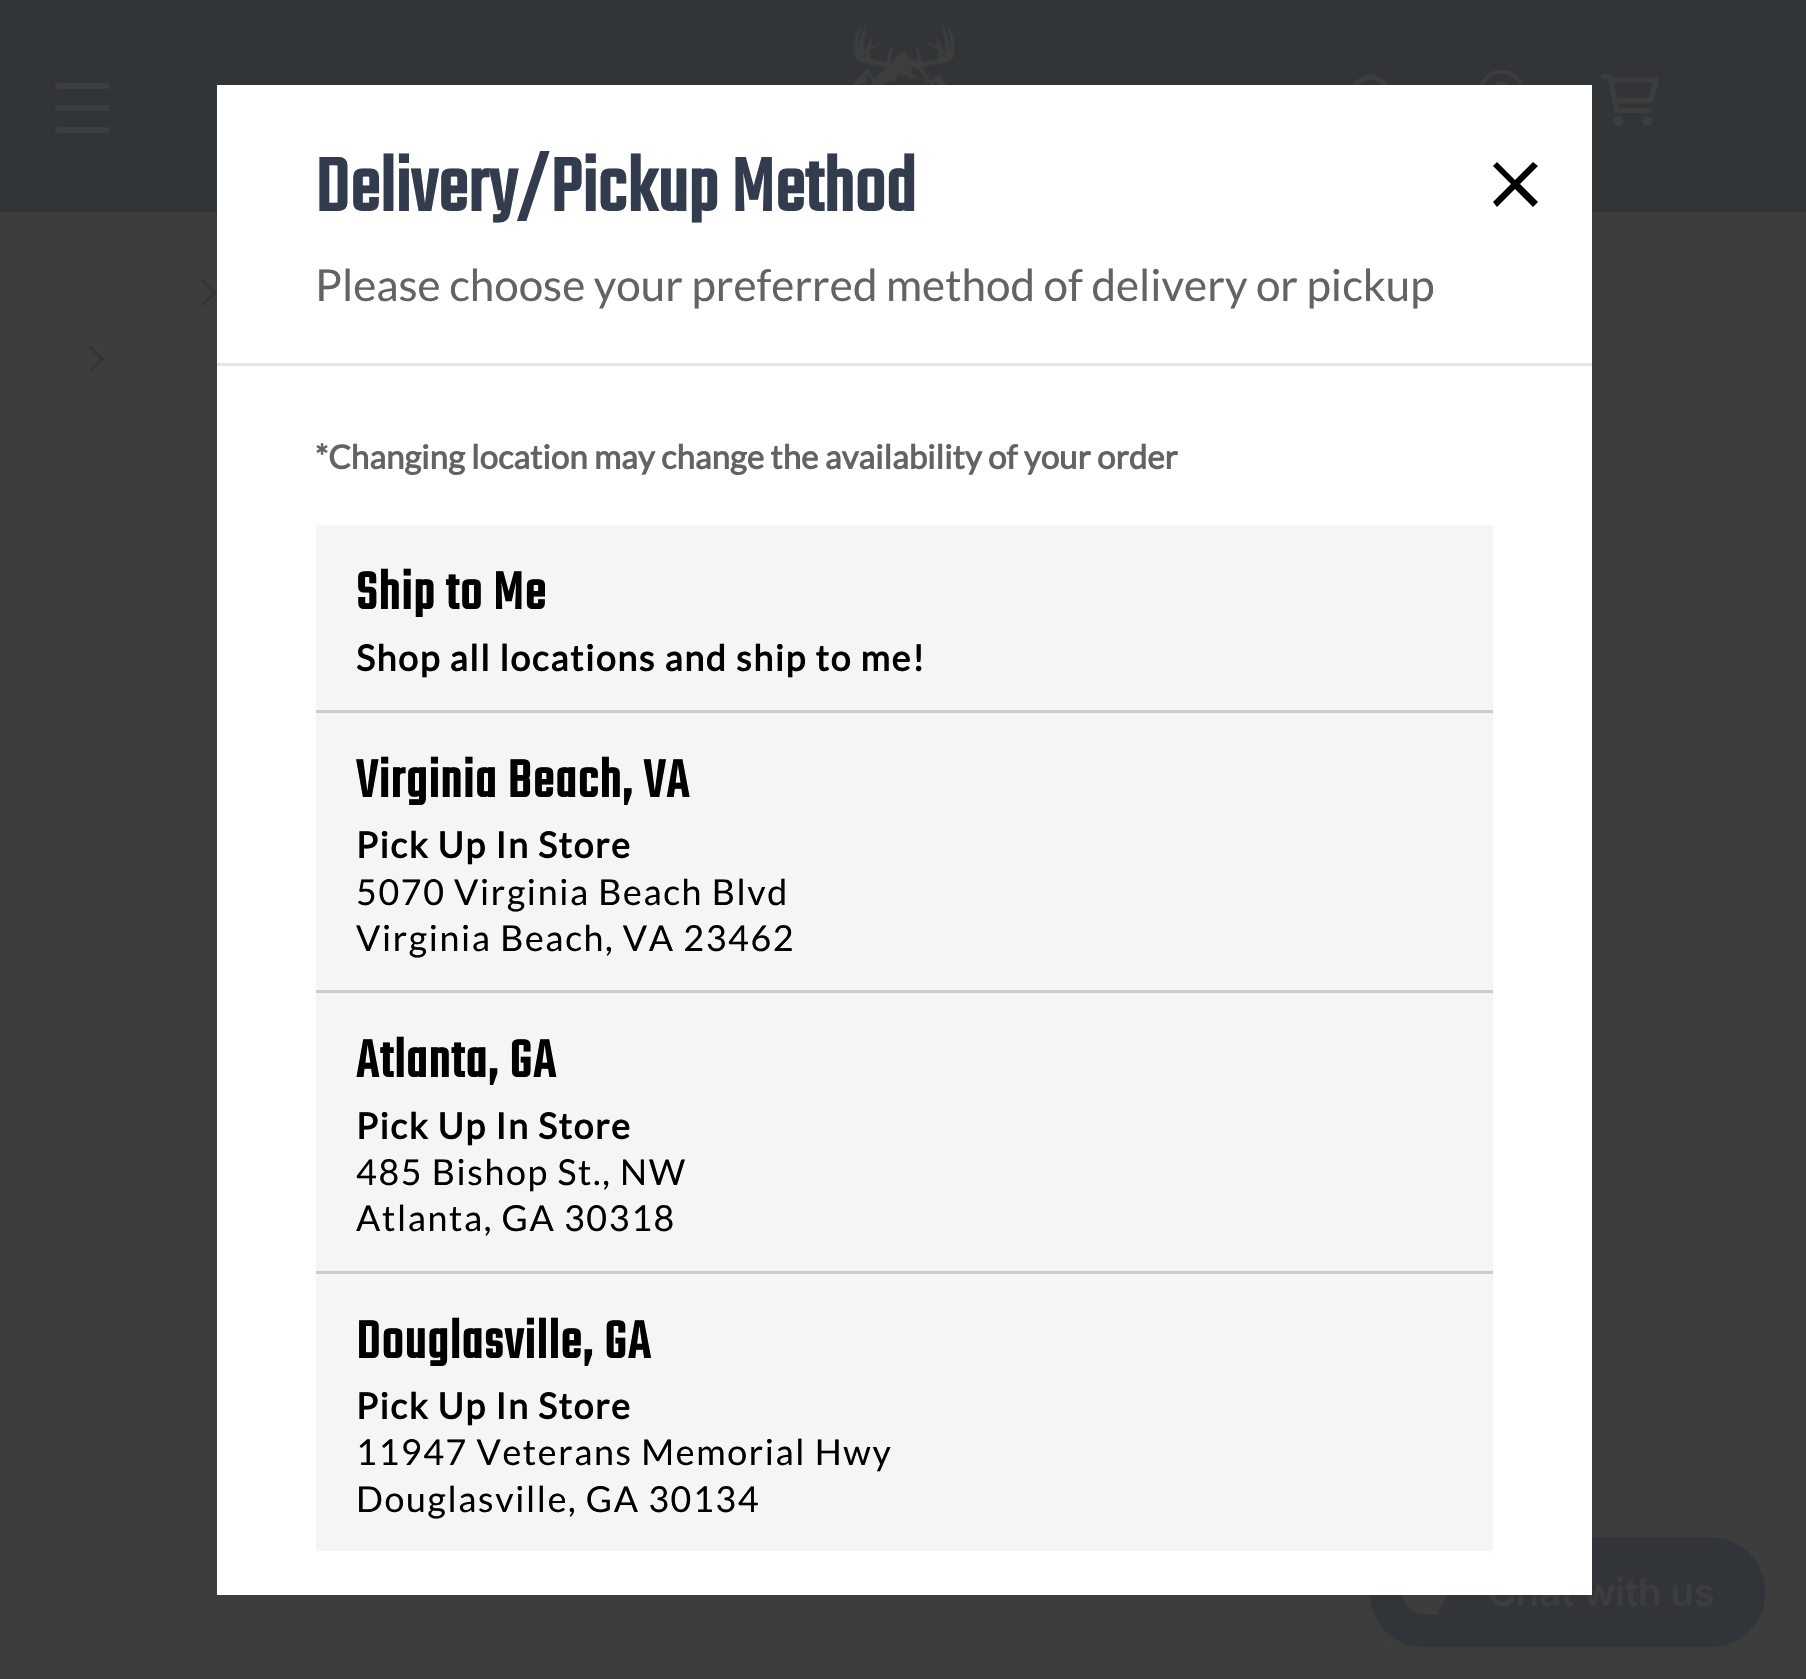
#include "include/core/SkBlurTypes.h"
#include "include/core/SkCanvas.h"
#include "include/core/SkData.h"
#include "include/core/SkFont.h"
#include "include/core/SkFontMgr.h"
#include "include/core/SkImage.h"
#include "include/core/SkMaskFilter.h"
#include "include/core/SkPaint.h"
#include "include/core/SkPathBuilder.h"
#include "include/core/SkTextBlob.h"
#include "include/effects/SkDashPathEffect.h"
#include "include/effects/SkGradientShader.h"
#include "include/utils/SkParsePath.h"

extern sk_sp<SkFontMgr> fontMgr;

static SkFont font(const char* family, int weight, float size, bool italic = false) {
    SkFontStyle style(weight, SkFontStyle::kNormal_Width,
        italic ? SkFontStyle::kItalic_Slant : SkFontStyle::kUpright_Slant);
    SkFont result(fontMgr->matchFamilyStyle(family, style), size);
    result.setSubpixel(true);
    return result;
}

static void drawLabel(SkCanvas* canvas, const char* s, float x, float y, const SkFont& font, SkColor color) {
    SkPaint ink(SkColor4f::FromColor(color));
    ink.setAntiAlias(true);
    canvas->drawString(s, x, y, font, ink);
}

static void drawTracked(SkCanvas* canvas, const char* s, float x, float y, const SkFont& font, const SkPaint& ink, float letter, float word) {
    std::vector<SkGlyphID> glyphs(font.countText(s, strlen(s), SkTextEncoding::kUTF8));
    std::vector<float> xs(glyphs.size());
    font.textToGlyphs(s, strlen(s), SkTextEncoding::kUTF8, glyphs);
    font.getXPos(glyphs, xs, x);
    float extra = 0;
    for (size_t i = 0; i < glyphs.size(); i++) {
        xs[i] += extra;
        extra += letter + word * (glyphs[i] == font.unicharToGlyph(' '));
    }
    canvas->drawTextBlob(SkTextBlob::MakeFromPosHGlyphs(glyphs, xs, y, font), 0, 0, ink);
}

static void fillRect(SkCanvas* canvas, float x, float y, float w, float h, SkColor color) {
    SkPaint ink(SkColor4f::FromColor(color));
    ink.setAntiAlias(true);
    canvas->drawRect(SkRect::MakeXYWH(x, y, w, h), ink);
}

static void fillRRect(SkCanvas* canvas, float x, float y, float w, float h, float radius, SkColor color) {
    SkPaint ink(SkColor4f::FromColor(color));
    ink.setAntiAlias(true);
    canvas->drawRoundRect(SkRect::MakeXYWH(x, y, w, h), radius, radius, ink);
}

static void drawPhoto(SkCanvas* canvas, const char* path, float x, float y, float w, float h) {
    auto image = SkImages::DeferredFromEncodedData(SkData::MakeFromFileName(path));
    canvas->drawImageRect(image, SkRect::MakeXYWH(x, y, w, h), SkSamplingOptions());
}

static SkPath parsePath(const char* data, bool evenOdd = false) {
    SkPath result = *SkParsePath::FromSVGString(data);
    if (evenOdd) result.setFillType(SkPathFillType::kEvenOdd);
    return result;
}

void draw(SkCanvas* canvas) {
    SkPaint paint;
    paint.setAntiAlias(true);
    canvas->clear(0xFF3D3D3D);
    fillRect(canvas, 0, 0, 1806, 212, 0xFF323538);
    drawPhoto(canvas, "assets/img1.png", 853, 24, 103, 61);
    fillRRect(canvas, 55, 105, 55, 6, 3, 0xFF3D3D3D);
    fillRRect(canvas, 55, 83, 55, 6, 3, 0xFF3D3D3D);
    fillRRect(canvas, 55, 127, 55, 6, 3, 0xFF3D3D3D);
    drawPhoto(canvas, "assets/img2.png", 1353, 74, 35, 11);
    drawPhoto(canvas, "assets/img3.png", 1480, 70, 43, 15);
    drawPhoto(canvas, "assets/img4.png", 1601, 74, 58, 52);
    drawPhoto(canvas, "assets/img5.png", 201, 279, 16, 26);
    drawPhoto(canvas, "assets/img6.png", 88, 345, 17, 26);
    drawPhoto(canvas, "assets/img7.png", 1364, 1537, 407, 121);
    fillRect(canvas, 217, 85, 1375, 1510, 0xFFFFFFFF);
    fillRect(canvas, 217, 363, 1375, 3, 0xFFE5E5E5);
    SkFont font1 = font("Teko", 700, 82.5f);
    paint.setColor(0xFF333C4E);
    drawTracked(canvas, "Delivery/Pickup Method", 315, 211, font1, paint, 0.7f, 0);
    paint.setColor(0xFF000000);
    canvas->drawPath(parsePath("M1538 166L1533 162L1515 180L1497 162L1493 166L1511 184L1493 202L1497 207L1515 189L1533 207L1538 202L1520 184Z"), paint);
    SkFont font2 = font("Lato", 400, 44);
    drawLabel(canvas, "Please choose your preferred method of delivery or pickup", 315, 301, font2, 0xFF636363);
    SkFont font3 = font("Lato", 700, 33);
    drawLabel(canvas, "*Changing location may change the availability of your order", 315, 469, font3, 0xFF636363);
    fillRect(canvas, 316, 525, 1177, 1026, 0xFFF7F4F4);
    fillRect(canvas, 316, 710, 1177, 3, 0xFFCCCCCC);
    SkFont font4 = font("Teko", 700, 57.75f);
    drawTracked(canvas, "Ship to Me", 356, 609, font4, paint, 1.65f, 0);
    SkFont font5 = font("Lato", 700, 35.75f);
    drawTracked(canvas, "Shop all locations and ship to me!", 356, 671, font5, paint, 1.65f, 0);
    fillRect(canvas, 316, 990, 1177, 3, 0xFFCCCCCC);
    drawTracked(canvas, "Virginia Beach, VA", 356, 797, font4, paint, 1.65f, 0);
    drawTracked(canvas, "Pick Up In Store", 356, 858, font5, paint, 1.65f, 0);
    SkFont font6 = font("Lato", 400, 35.75f);
    drawTracked(canvas, "5070 Virginia Beach Blvd", 356, 905, font6, paint, 1.65f, 0);
    drawTracked(canvas, "Virginia Beach, VA 23462", 356, 951, font6, paint, 1.65f, 0);
    fillRect(canvas, 316, 1271, 1177, 3, 0xFFCCCCCC);
    drawTracked(canvas, "Atlanta, GA", 356, 1077, font4, paint, 1.65f, 0);
    drawTracked(canvas, "Pick Up In Store", 356, 1139, font5, paint, 1.65f, 0);
    drawTracked(canvas, "485 Bishop St., NW", 356, 1185, font6, paint, 1.65f, 0);
    drawTracked(canvas, "Atlanta, GA 30318", 356, 1231, font6, paint, 1.65f, 0);
    drawTracked(canvas, "Douglasville, GA", 356, 1358, font4, paint, 1.65f, 0);
    drawTracked(canvas, "Pick Up In Store", 356, 1419, font5, paint, 1.65f, 0);
    drawTracked(canvas, "11947 Veterans Memorial Hwy", 356, 1465, font6, paint, 1.65f, 0);
    drawTracked(canvas, "Douglasville, GA 30134", 356, 1512, font6, paint, 1.65f, 0);
}
